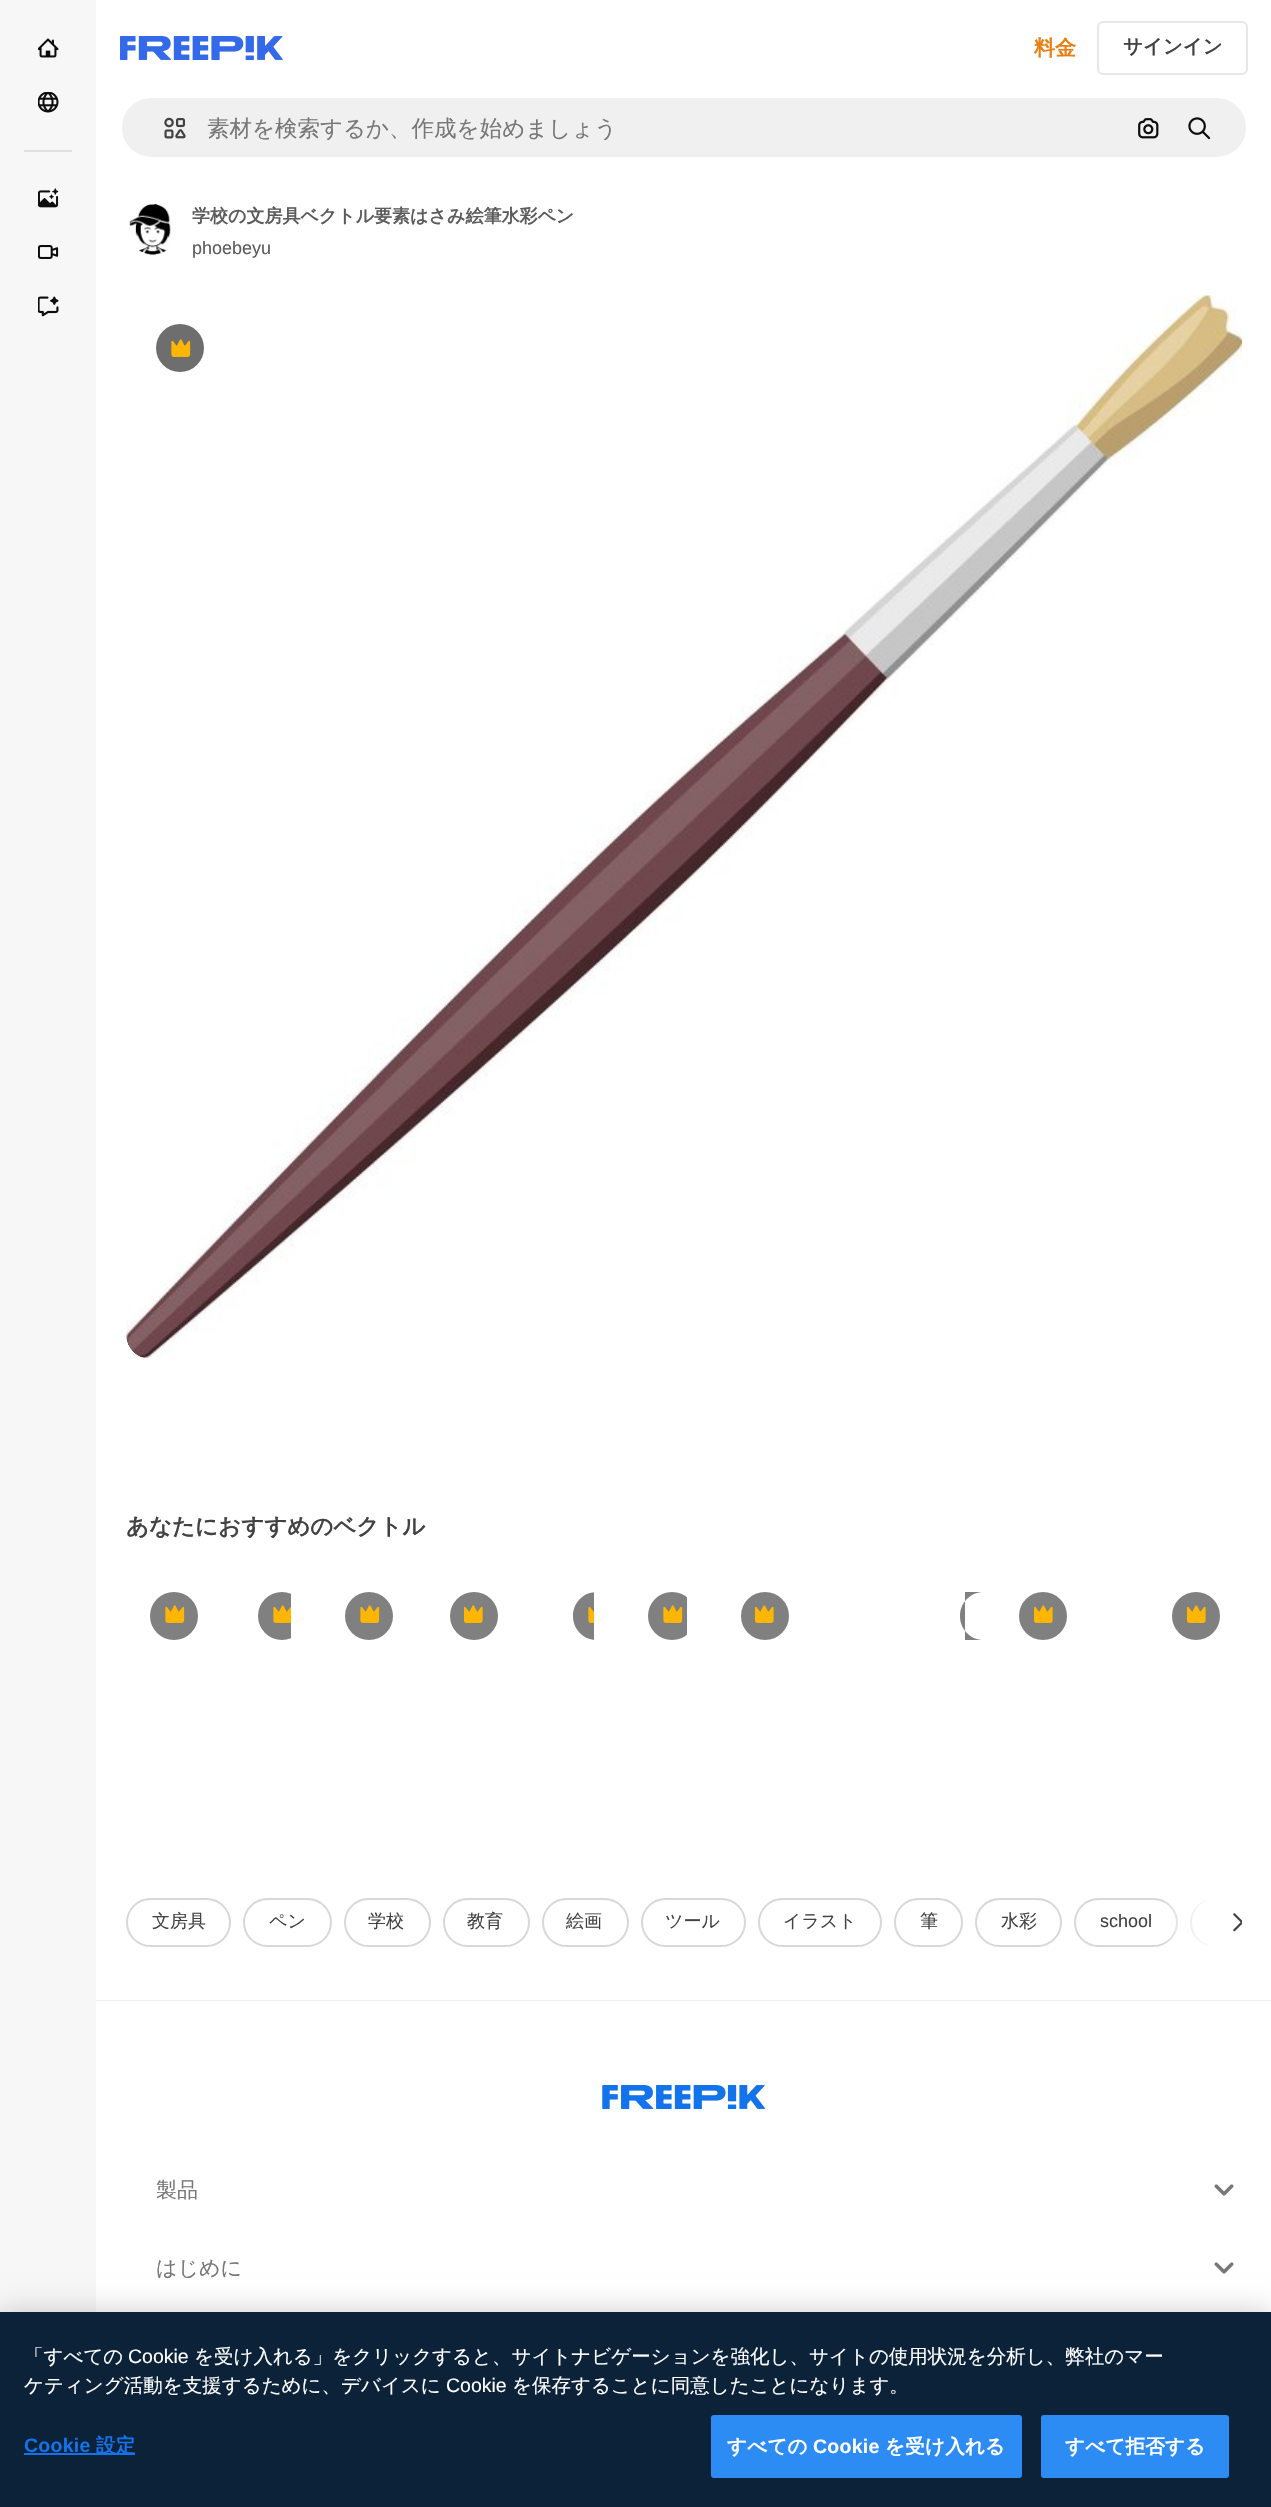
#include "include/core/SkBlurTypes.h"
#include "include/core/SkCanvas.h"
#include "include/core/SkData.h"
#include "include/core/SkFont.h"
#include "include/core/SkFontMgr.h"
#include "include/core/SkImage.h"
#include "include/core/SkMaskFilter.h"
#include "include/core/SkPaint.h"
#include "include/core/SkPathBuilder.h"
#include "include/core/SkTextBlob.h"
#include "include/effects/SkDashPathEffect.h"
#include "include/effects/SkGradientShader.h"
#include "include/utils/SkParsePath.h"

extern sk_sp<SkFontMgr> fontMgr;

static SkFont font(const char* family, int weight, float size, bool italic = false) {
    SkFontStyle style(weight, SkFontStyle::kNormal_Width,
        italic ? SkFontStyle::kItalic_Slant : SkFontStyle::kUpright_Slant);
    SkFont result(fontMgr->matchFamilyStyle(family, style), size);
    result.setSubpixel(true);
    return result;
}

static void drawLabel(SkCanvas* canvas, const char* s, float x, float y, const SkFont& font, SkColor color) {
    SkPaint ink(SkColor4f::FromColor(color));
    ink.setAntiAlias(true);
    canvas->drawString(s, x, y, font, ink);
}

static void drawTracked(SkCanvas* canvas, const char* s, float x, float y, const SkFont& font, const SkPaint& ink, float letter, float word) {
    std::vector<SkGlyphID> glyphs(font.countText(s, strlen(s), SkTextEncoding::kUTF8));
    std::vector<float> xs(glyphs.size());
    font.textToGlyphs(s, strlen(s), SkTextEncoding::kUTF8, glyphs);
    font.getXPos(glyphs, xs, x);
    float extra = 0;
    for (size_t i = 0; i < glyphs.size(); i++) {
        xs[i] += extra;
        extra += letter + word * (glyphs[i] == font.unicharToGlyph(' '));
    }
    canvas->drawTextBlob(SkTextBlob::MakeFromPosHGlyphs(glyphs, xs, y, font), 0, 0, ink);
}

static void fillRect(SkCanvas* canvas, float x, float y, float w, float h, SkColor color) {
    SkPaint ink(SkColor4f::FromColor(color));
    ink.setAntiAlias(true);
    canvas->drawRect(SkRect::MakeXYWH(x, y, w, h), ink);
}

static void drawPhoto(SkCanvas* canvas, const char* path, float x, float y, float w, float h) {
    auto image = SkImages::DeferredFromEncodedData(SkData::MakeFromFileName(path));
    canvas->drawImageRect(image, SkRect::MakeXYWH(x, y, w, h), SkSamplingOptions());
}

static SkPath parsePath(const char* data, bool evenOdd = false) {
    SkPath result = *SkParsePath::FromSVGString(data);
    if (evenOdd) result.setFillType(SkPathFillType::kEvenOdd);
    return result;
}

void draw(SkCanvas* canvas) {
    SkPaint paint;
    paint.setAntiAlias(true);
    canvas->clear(0xFFFFFFFF);
    fillRect(canvas, 0, 0, 96, 2312, 0xFFF7F7F7);
    drawPhoto(canvas, "assets/img1.png", 38, 38, 21, 20);
    drawPhoto(canvas, "assets/img2.png", 38, 92, 21, 21);
    fillRect(canvas, 24, 150, 48, 2, 0xFFE0E0E0);
    drawPhoto(canvas, "assets/img3.png", 38, 188, 21, 20);
    drawPhoto(canvas, "assets/img4.png", 38, 245, 21, 14);
    drawPhoto(canvas, "assets/img5.png", 38, 296, 21, 21);
    drawPhoto(canvas, "assets/img6.png", 120, 36, 163, 24);
    SkFont font1 = font("WenQuanYi Zen Hei", 700, 21);
    drawLabel(canvas, "料金", 1034, 55, font1, 0xFFEA7E11);
    paint.setStroke(true);
    paint.setStrokeWidth(2);
    paint.setColor(0xFFE7E7E7);
    canvas->drawRoundRect(SkRect::MakeXYWH(1098, 22, 149, 52), 5, 5, paint);
    SkFont font2 = font("WenQuanYi Zen Hei", 700, 19.5f);
    drawLabel(canvas, "サインイン", 1123, 53, font2, 0xFF424242);
    paint.setStroke(false);
    paint.setColor(0xFFF0F0F0);
    canvas->drawRoundRect(SkRect::MakeXYWH(121, 97, 1126, 61), 30.5f, 30.5f, paint);
    paint.setStroke(true);
    paint.setColor(0xFFFFFFFF);
    canvas->drawRoundRect(SkRect::MakeXYWH(121, 97, 1126, 61), 30.5f, 30.5f, paint);
    drawPhoto(canvas, "assets/img7.png", 164, 117, 22, 22);
    SkFont font3 = font("WenQuanYi Zen Hei", 500, 22.5f);
    drawLabel(canvas, "素材を検索するか、作成を始めましょう", 207, 136, font3, 0xFF777777);
    drawPhoto(canvas, "assets/img8.png", 1138, 118, 21, 21);
    drawPhoto(canvas, "assets/img9.png", 1188, 117, 23, 23);
    drawPhoto(canvas, "assets/img10.png", 129, 204, 42, 51);
    SkFont font4 = font("WenQuanYi Zen Hei", 700, 18);
    drawLabel(canvas, "学校の文房具ベクトル要素はさみ絵筆水彩ペン", 192, 222, font4, 0xFF5C5C5C);
    SkFont font5 = font("Liberation Sans", 400, 18);
    drawLabel(canvas, "phoebeyu", 192, 254, font5, 0xFF5C5C5C);
    drawPhoto(canvas, "assets/img11.png", 126, 295, 1116, 1063);
    paint.setStroke(false);
    paint.setColor(0xFF6E6E6E);
    canvas->drawCircle(180, 348, 24, paint);
    drawPhoto(canvas, "assets/img12.png", 171, 339, 20, 18);
    SkFont font6 = font("WenQuanYi Zen Hei", 700, 22.5f);
    drawLabel(canvas, "あなたにおすすめのベクトル", 126, 1534, font6, 0xFF424242);
    paint.setColor(0xFF808080);
    canvas->drawCircle(174, 1616, 24, paint);
    drawPhoto(canvas, "assets/img13.png", 165, 1605, 20, 18);
    canvas->save();
    canvas->clipPath(parsePath("M258 1568H267C280.5 1568 291 1578.5 291 1592V1844C291 1857.5 280.5 1868 267 1868H258C244.5 1868 234 1857.5 234 1844V1592C234 1578.5 244.5 1568 258 1568Z"), true);
    canvas->drawCircle(282, 1616, 24, paint);
    canvas->restore();
    drawPhoto(canvas, "assets/img14.png", 273, 1605, 18, 18);
    canvas->drawCircle(369, 1616, 24, paint);
    drawPhoto(canvas, "assets/img13.png", 360, 1605, 20, 18);
    canvas->drawCircle(474, 1616, 24, paint);
    drawPhoto(canvas, "assets/img15.png", 464, 1605, 19, 18);
    canvas->drawPath(parsePath("M597 1592H594V1640H597C583.5 1640 573 1629.5 573 1616C573 1602.5 583.5 1592 597 1592Z"), paint);
    drawPhoto(canvas, "assets/img16.png", 588, 1606, 6, 17);
    canvas->save();
    canvas->clipPath(parsePath("M648 1568H663C676.5 1568 687 1578.5 687 1592V1844C687 1857.5 676.5 1868 663 1868H648C634.5 1868 624 1857.5 624 1844V1592C624 1578.5 634.5 1568 648 1568Z"), true);
    canvas->drawCircle(672, 1616, 24, paint);
    canvas->restore();
    drawPhoto(canvas, "assets/img13.png", 663, 1605, 20, 18);
    canvas->drawCircle(765, 1616, 24, paint);
    drawPhoto(canvas, "assets/img15.png", 755, 1605, 19, 18);
    canvas->drawPath(parsePath("M984 1592H965V1640H984C970.5 1640 960 1629.5 960 1616C960 1602.5 970.5 1592 984 1592Z"), paint);
    canvas->drawCircle(1043, 1616, 24, paint);
    drawPhoto(canvas, "assets/img15.png", 1034, 1605, 19, 18);
    canvas->drawCircle(1196, 1616, 24, paint);
    drawPhoto(canvas, "assets/img15.png", 1187, 1605, 19, 18);
    paint.setStroke(true);
    paint.setColor(0xFFD8D8D8);
    canvas->drawRoundRect(SkRect::MakeXYWH(127, 1899, 103, 47), 23.5f, 23.5f, paint);
    SkFont font7 = font("WenQuanYi Zen Hei", 500, 18);
    drawLabel(canvas, "文房具", 152, 1927, font7, 0xFF424242);
    canvas->drawRoundRect(SkRect::MakeXYWH(244, 1899, 87, 47), 23.5f, 23.5f, paint);
    drawLabel(canvas, "ペン", 269, 1927, font7, 0xFF424242);
    canvas->drawRoundRect(SkRect::MakeXYWH(345, 1899, 85, 47), 23.5f, 23.5f, paint);
    drawLabel(canvas, "学校", 368, 1927, font7, 0xFF424242);
    canvas->drawRoundRect(SkRect::MakeXYWH(444, 1899, 85, 47), 23.5f, 23.5f, paint);
    drawLabel(canvas, "教育", 467, 1927, font7, 0xFF424242);
    canvas->drawRoundRect(SkRect::MakeXYWH(543, 1899, 85, 47), 23.5f, 23.5f, paint);
    drawLabel(canvas, "絵画", 566, 1927, font7, 0xFF424242);
    canvas->drawRoundRect(SkRect::MakeXYWH(642, 1899, 103, 47), 23.5f, 23.5f, paint);
    drawLabel(canvas, "ツール", 665, 1927, font7, 0xFF424242);
    canvas->drawRoundRect(SkRect::MakeXYWH(759, 1899, 122, 47), 23.5f, 23.5f, paint);
    drawLabel(canvas, "イラスト", 783, 1927, font7, 0xFF424242);
    canvas->drawRoundRect(SkRect::MakeXYWH(895, 1899, 67, 47), 23.5f, 23.5f, paint);
    drawLabel(canvas, "筆", 920, 1927, font7, 0xFF424242);
    canvas->drawRoundRect(SkRect::MakeXYWH(976, 1899, 85, 47), 23.5f, 23.5f, paint);
    drawLabel(canvas, "水彩", 1001, 1927, font7, 0xFF424242);
    canvas->drawRoundRect(SkRect::MakeXYWH(1075, 1899, 102, 47), 23.5f, 23.5f, paint);
    drawLabel(canvas, "school", 1100, 1927, font5, 0xFF424242);
    canvas->save();
    canvas->clipRect(SkRect::MakeXYWH(126, 1898, 1116, 49));
    canvas->drawRoundRect(SkRect::MakeXYWH(1191, 1899, 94, 47), 23.5f, 23.5f, paint);
    canvas->restore();
    fillRect(canvas, 1212, 1898, 30, 49, 0xFFFFFFFF);
    paint.setStroke(false);
    {
        const SkColor colors[] = {0xFFFFFFFF, 0x00FFFFFF};
        const float stops[] = {0, 1};
        const SkPoint ends[] = {{1212, 1922}, {1160, 1922}};
        paint.setShader(SkGradientShader::MakeLinear(ends, colors, stops, 2, SkTileMode::kClamp));
        paint.setAlpha(255);
    }
    canvas->drawRect(SkRect::MakeXYWH(1163, 1898, 49, 49), paint);
    drawPhoto(canvas, "assets/img17.png", 1233, 1913, 9, 19);
    fillRect(canvas, 96, 2000, 1175, 1, 0xFFF0F0F0);
    drawPhoto(canvas, "assets/img18.png", 602, 2085, 164, 24);
    SkFont font8 = font("WenQuanYi Zen Hei", 500, 21);
    drawLabel(canvas, "製品", 156, 2197, font8, 0xFF777777);
    drawPhoto(canvas, "assets/img19.png", 1214, 2184, 20, 12);
    drawLabel(canvas, "はじめに", 156, 2275, font8, 0xFF777777);
    drawPhoto(canvas, "assets/img19.png", 1214, 2262, 20, 12);
    paint.setShader(nullptr);
    paint.setColor(0x33000000);
    paint.setMaskFilter(SkMaskFilter::MakeBlur(kNormal_SkBlurStyle, 13.5f));
    canvas->drawRect(SkRect::MakeXYWH(0, 2312, 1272, 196), paint);
    paint.setMaskFilter(nullptr);
    fillRect(canvas, 0, 2312, 1271, 195, 0xFF0B2239);
    SkFont font9 = font("WenQuanYi Zen Hei", 500, 19.5f);
    drawLabel(canvas, "「すべての", 24, 2363, font9, 0xFFFFFFFF);
    SkFont font10 = font("Liberation Sans", 400, 19.5f);
    drawLabel(canvas, "Cookie", 128, 2363, font10, 0xFFFFFFFF);
    drawLabel(canvas, "を受け入れる」をクリックすると、サイトナビゲーションを強化し、サイトの使用状況を分析し、弊社のマー", 194, 2363, font9, 0xFFFFFFFF);
    drawLabel(canvas, "ケティング活動を支援するために、デバイスに", 24, 2392, font9, 0xFFFFFFFF);
    drawLabel(canvas, "Cookie", 446, 2392, font10, 0xFFFFFFFF);
    drawLabel(canvas, "を保存することに同意したことになります。", 512, 2392, font9, 0xFFFFFFFF);
    SkFont font11 = font("Liberation Sans", 700, 19.5f);
    paint.setColor(0xFF1273EB);
    drawTracked(canvas, "Cookie", 24, 2452, font11, paint, 0.25f, 0);
    fillRect(canvas, 24, 2453, 111, 2, 0xFF1273EB);
    drawTracked(canvas, "設定", 96, 2452, font2, paint, 0.25f, 0);
    paint.setColor(0xFF2C8CF4);
    canvas->drawRoundRect(SkRect::MakeXYWH(712, 2416, 309, 61), 2, 2, paint);
    paint.setStroke(true);
    canvas->drawRoundRect(SkRect::MakeXYWH(712, 2416, 309, 61), 2, 2, paint);
    paint.setStroke(false);
    paint.setColor(0xFFFFFFFF);
    drawTracked(canvas, "すべての", 727, 2453, font2, paint, 0.25f, 0);
    drawTracked(canvas, "Cookie", 813, 2453, font11, paint, 0.25f, 0);
    drawTracked(canvas, "を受け入れる", 885, 2453, font2, paint, 0.25f, 0);
    paint.setColor(0xFF2C8CF4);
    canvas->drawRoundRect(SkRect::MakeXYWH(1042, 2416, 186, 61), 2, 2, paint);
    paint.setStroke(true);
    canvas->drawRoundRect(SkRect::MakeXYWH(1042, 2416, 186, 61), 2, 2, paint);
    paint.setStroke(false);
    paint.setColor(0xFFFFFFFF);
    drawTracked(canvas, "すべて拒否する", 1065, 2453, font2, paint, 0.25f, 0);
}
